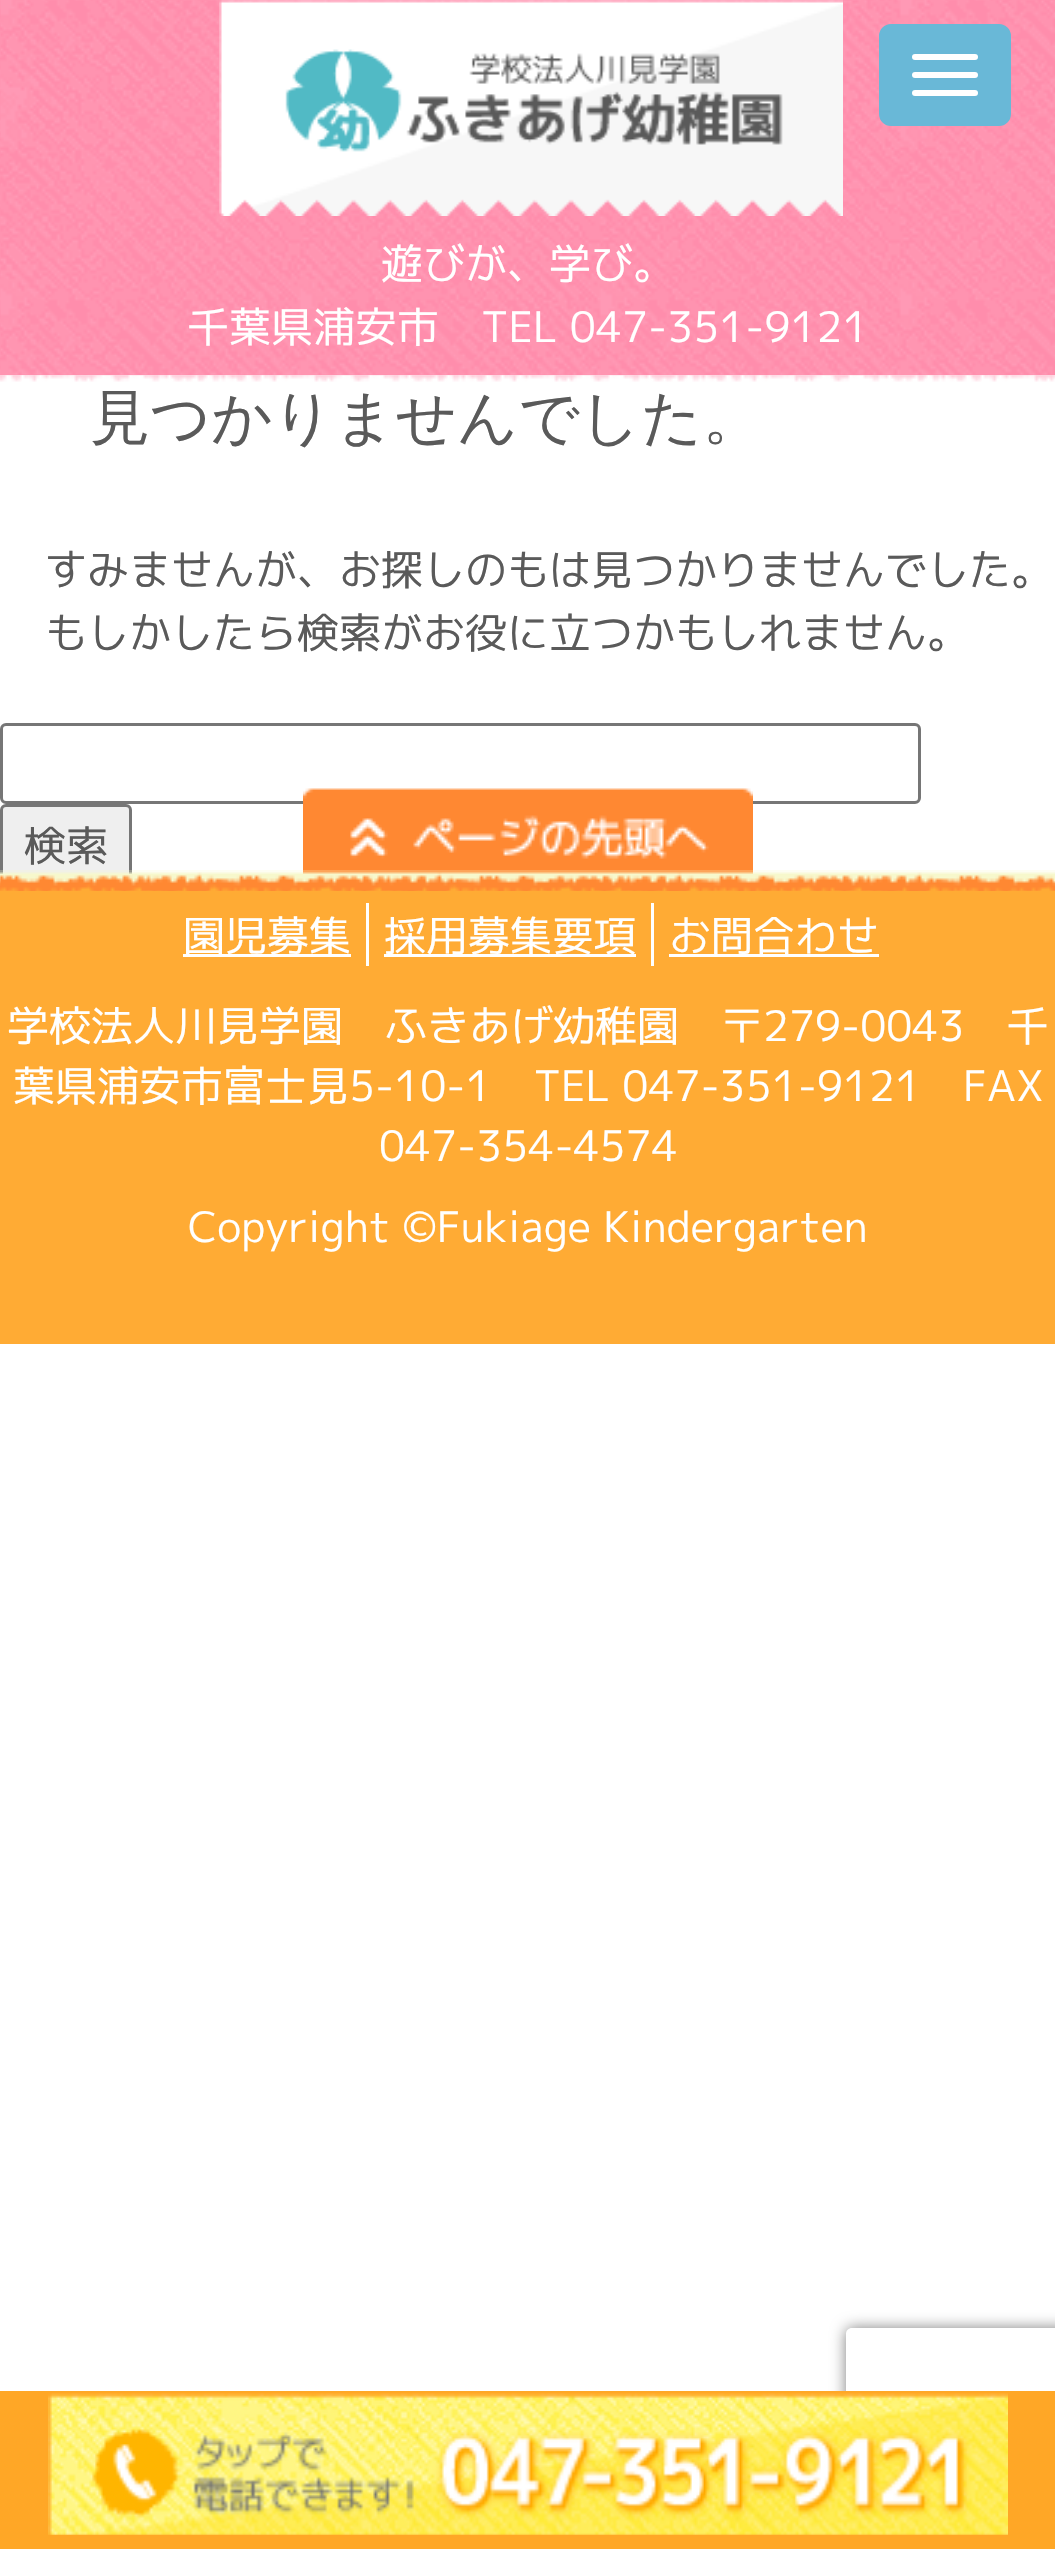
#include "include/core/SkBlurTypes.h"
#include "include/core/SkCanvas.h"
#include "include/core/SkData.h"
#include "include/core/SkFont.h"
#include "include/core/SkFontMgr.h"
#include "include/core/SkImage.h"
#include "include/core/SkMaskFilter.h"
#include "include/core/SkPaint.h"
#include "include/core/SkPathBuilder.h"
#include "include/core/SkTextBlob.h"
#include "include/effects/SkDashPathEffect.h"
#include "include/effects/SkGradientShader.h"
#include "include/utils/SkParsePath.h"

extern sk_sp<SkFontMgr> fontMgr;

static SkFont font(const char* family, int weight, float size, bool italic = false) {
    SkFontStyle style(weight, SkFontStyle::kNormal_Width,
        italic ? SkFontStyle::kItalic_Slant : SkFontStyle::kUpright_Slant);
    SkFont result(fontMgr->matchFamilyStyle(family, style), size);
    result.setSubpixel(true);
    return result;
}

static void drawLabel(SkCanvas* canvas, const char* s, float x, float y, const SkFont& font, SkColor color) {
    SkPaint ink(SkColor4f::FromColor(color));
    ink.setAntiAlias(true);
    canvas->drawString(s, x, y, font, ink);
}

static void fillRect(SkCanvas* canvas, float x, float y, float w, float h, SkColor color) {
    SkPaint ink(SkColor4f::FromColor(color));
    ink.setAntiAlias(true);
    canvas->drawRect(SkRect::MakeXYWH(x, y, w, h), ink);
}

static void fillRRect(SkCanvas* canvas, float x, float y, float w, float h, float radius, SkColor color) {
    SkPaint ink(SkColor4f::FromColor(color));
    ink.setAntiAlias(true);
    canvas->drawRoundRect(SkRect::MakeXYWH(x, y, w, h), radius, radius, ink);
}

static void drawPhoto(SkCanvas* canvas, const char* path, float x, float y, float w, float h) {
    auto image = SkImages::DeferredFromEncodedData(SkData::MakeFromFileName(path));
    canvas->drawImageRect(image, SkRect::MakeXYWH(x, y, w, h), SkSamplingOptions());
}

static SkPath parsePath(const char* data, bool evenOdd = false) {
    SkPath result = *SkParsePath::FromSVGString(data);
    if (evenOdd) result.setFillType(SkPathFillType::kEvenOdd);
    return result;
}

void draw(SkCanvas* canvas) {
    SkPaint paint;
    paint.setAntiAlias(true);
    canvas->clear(0xFFFFFFFF);
    drawPhoto(canvas, "assets/img1.png", 0, 0, 1055, 375);
    paint.setColor(0xFF69B8D7);
    canvas->drawRoundRect(SkRect::MakeXYWH(880.5f, 25.5f, 129, 99), 10.5f, 10.5f, paint);
    paint.setStroke(true);
    paint.setStrokeWidth(3);
    canvas->drawRoundRect(SkRect::MakeXYWH(880.5f, 25.5f, 129, 99), 10.5f, 10.5f, paint);
    fillRRect(canvas, 912, 54, 66, 6, 3, 0xFFFFFFFF);
    fillRRect(canvas, 912, 72, 66, 6, 3, 0xFFFFFFFF);
    fillRRect(canvas, 912, 90, 66, 6, 3, 0xFFFFFFFF);
    drawPhoto(canvas, "assets/img2.png", 219, 0, 624, 216);
    SkFont font1 = font("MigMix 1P", 400, 42);
    drawLabel(canvas, "遊びが、学び。", 381, 279, font1, 0xFFFFFFFF);
    drawLabel(canvas, "千葉県浦安市　TEL 047-351-9121", 187, 342, font1, 0xFFFFFFFF);
    drawPhoto(canvas, "assets/img3.png", 0, 375, 1055, 7);
    SkFont font2 = font("WenQuanYi Zen Hei", 500, 60);
    drawLabel(canvas, "見つかりませんでした。", 90, 438, font2, 0xFF5A5A5A);
    drawLabel(canvas, "すみませんが、お探しのもは見つかりませんでした。", 45, 585, font1, 0xFF5A5A5A);
    drawLabel(canvas, "もしかしたら検索がお役に立つかもしれません。", 45, 648, font1, 0xFF5A5A5A);
    paint.setColor(0xFF767676);
    canvas->drawRoundRect(SkRect::MakeXYWH(1.5f, 724.5f, 918, 78), 4.5f, 4.5f, paint);
    paint.setStroke(false);
    paint.setColor(0xFFEFEFEF);
    canvas->drawRoundRect(SkRect::MakeXYWH(1.5f, 805.5f, 129, 78), 4.5f, 4.5f, paint);
    paint.setStroke(true);
    paint.setColor(0xFF767676);
    canvas->drawRoundRect(SkRect::MakeXYWH(1.5f, 805.5f, 129, 78), 4.5f, 4.5f, paint);
    drawLabel(canvas, "検索", 24, 861, font1, 0xFF5A5A5A);
    drawPhoto(canvas, "assets/img4.png", 303, 788, 450, 86);
    drawPhoto(canvas, "assets/img5.png", 0, 870, 1055, 21);
    fillRect(canvas, 0, 891, 1055, 453, 0xFFFFAB34);
    fillRect(canvas, 183, 954, 168, 3, 0xFFFFFFFF);
    drawLabel(canvas, "園児募集", 183, 951, font1, 0xFFFFFFFF);
    fillRect(canvas, 366, 903, 3, 63, 0xFFFFFFFF);
    fillRect(canvas, 384, 954, 252, 3, 0xFFFFFFFF);
    drawLabel(canvas, "採用募集要項", 384, 951, font1, 0xFFFFFFFF);
    fillRect(canvas, 651, 903, 3, 63, 0xFFFFFFFF);
    fillRect(canvas, 669, 954, 210, 3, 0xFFFFFFFF);
    drawLabel(canvas, "お問合わせ", 669, 951, font1, 0xFFFFFFFF);
    drawLabel(canvas, "学校法人川見学園　ふきあげ幼稚園　〒279-0043　千", 7, 1041, font1, 0xFFFFFFFF);
    drawLabel(canvas, "葉県浦安市富士見5-10-1　TEL 047-351-9121　FAX", 13, 1101, font1, 0xFFFFFFFF);
    drawLabel(canvas, "047-354-4574", 379, 1161, font1, 0xFFFFFFFF);
    drawLabel(canvas, "Copyright ©Fukiage Kindergarten", 188, 1242, font1, 0xFFFFFFFF);
    canvas->save();
    canvas->clipPath(parsePath("M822 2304H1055V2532H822ZM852 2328H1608C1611.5 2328 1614 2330.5 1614 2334V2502C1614 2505.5 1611.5 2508 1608 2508H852C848.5 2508 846 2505.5 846 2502V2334C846 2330.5 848.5 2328 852 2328Z", true), true);
    paint.setStroke(false);
    paint.setColor(0xFF808080);
    paint.setMaskFilter(SkMaskFilter::MakeBlur(kNormal_SkBlurStyle, 7.5f));
    canvas->drawRoundRect(SkRect::MakeXYWH(846, 2328, 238, 180), 6, 6, paint);
    paint.setMaskFilter(nullptr);
    canvas->restore();
    fillRect(canvas, 0, 2391, 1055, 158, 0xFFFFA726);
    drawPhoto(canvas, "assets/img6.png", 48, 2393, 960, 142);
}
